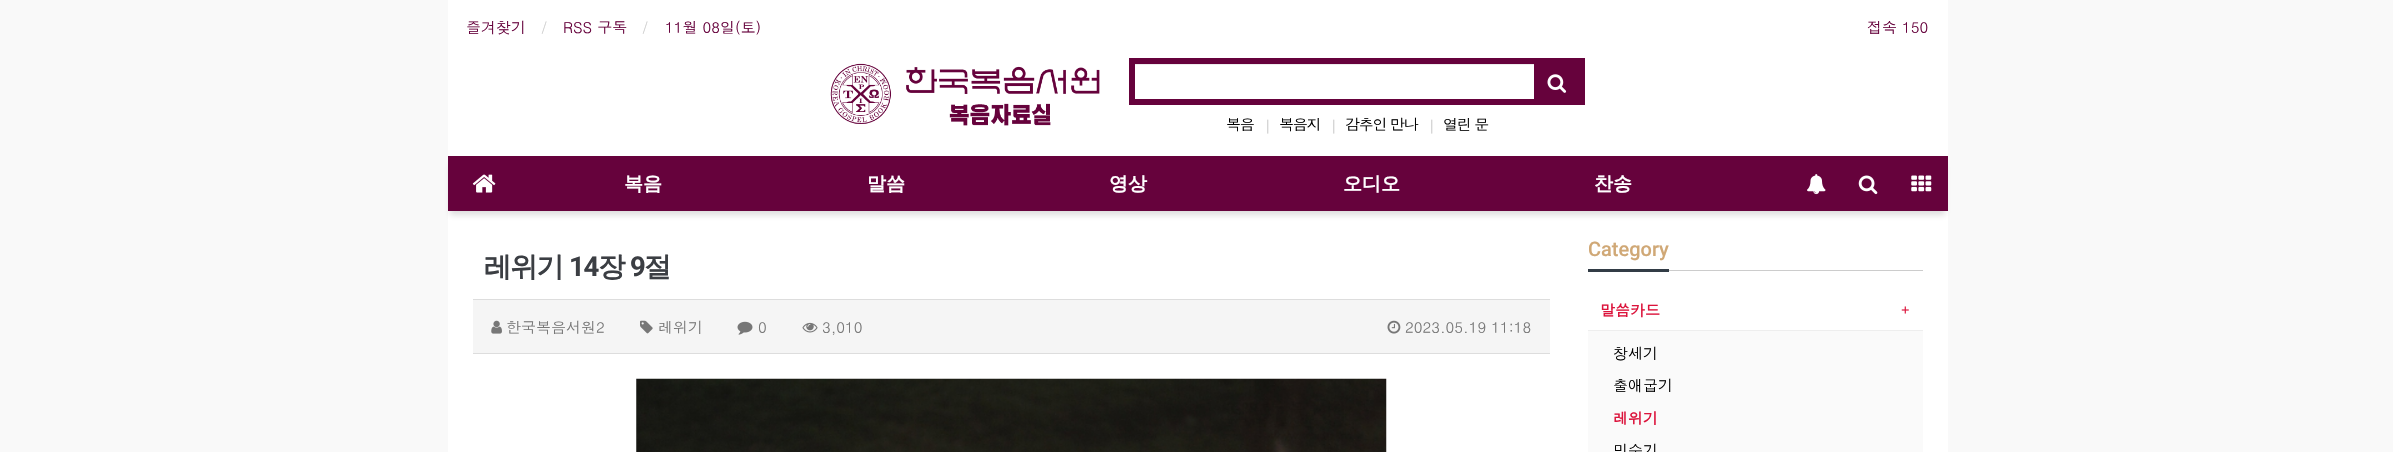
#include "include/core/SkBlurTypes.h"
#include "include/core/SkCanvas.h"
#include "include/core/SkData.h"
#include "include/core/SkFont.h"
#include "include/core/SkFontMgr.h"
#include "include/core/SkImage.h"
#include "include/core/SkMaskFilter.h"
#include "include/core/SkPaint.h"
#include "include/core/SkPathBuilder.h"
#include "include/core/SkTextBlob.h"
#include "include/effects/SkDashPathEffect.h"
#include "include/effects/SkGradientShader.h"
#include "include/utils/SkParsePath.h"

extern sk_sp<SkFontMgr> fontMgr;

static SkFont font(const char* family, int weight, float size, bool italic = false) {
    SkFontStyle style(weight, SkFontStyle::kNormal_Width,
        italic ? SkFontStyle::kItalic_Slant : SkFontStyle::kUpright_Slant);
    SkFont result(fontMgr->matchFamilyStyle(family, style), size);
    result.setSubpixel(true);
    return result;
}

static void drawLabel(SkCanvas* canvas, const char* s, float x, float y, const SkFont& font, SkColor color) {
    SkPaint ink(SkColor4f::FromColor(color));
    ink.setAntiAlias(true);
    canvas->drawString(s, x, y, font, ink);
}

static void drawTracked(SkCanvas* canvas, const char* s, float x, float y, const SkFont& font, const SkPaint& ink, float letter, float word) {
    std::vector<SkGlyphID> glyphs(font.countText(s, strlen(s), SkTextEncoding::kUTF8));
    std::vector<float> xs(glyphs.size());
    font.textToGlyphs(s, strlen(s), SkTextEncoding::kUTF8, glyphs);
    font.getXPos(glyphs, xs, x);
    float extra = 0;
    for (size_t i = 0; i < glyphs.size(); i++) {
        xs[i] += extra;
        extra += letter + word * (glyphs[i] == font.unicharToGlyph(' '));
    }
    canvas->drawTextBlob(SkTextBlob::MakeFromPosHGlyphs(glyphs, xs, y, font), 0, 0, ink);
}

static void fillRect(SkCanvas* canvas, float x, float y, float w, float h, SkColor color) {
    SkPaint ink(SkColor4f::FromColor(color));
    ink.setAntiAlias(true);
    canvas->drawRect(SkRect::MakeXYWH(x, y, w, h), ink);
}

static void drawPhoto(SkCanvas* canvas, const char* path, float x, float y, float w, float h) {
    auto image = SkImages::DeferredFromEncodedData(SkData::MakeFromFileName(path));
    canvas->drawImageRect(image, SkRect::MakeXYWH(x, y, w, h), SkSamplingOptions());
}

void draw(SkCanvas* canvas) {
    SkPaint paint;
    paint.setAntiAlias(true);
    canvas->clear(0xFFF9F9F9);
    fillRect(canvas, 448, 0, 1500, 452, 0xFFFFFFFF);
    SkFont font1 = font("Dotum", 400, 15);
    drawLabel(canvas, "즐겨찾기", 466, 33, font1, 0xFF66023C);
    drawLabel(canvas, "/", 541, 33, font1, 0xFFCCCCCC);
    drawLabel(canvas, "RSS 구독", 563, 33, font1, 0xFF66023C);
    drawLabel(canvas, "/", 642, 33, font1, 0xFFCCCCCC);
    drawLabel(canvas, "11월 08일(토)", 665, 33, font1, 0xFF66023C);
    drawLabel(canvas, "접속 150", 1867, 33, font1, 0xFF66023C);
    drawPhoto(canvas, "assets/img1.png", 830, 63, 270, 63);
    fillRect(canvas, 1129, 58, 456, 47, 0xFF66023C);
    fillRect(canvas, 1135, 65, 399, 34, 0xFFFFFFFF);
    fillRect(canvas, 1135, 64, 399, 1, 0xFFECECEC);
    drawPhoto(canvas, "assets/img2.png", 1547, 74, 20, 19);
    paint.setColor(0xFF000000);
    drawTracked(canvas, "복음", 1226, 130, font1, paint, -1.25f, 0);
    paint.setColor(0xFFCCCCCC);
    drawTracked(canvas, "|", 1264, 132, font1, paint, -1.25f, 0);
    paint.setColor(0xFF000000);
    drawTracked(canvas, "복음지", 1279, 130, font1, paint, -1.25f, 0);
    paint.setColor(0xFFCCCCCC);
    drawTracked(canvas, "|", 1330, 132, font1, paint, -1.25f, 0);
    paint.setColor(0xFF000000);
    drawTracked(canvas, "감추인 만나", 1345, 130, font1, paint, -1.25f, 0);
    paint.setColor(0xFFCCCCCC);
    drawTracked(canvas, "|", 1428, 132, font1, paint, -1.25f, 0);
    paint.setColor(0xFF000000);
    drawTracked(canvas, "열린 문", 1443, 130, font1, paint, -1.25f, 0);
    paint.setColor(0x26191919);
    paint.setMaskFilter(SkMaskFilter::MakeBlur(kNormal_SkBlurStyle, 3));
    canvas->drawRect(SkRect::MakeXYWH(450, 165, 1495, 50), paint);
    paint.setMaskFilter(nullptr);
    fillRect(canvas, 448, 156, 1500, 55, 0xFF66023C);
    drawPhoto(canvas, "assets/img3.png", 472, 174, 24, 19);
    SkFont font2 = font("WenQuanYi Zen Hei", 700, 19);
    drawLabel(canvas, "복음", 624, 190, font2, 0xFFFFFFFF);
    drawLabel(canvas, "말씀", 867, 190, font2, 0xFFFFFFFF);
    drawLabel(canvas, "영상", 1109, 190, font2, 0xFFFFFFFF);
    drawLabel(canvas, "오디오", 1343, 190, font2, 0xFFFFFFFF);
    drawLabel(canvas, "찬송", 1594, 190, font2, 0xFFFFFFFF);
    drawPhoto(canvas, "assets/img4.png", 1807, 174, 19, 21);
    drawPhoto(canvas, "assets/img5.png", 1858, 175, 20, 20);
    drawPhoto(canvas, "assets/img6.png", 1911, 175, 21, 17);
    SkFont font3 = font("WenQuanYi Zen Hei", 700, 27.5f);
    paint.setColor(0xFF3B3E43);
    drawTracked(canvas, "레위기", 484, 276, font3, paint, -1.25f, 0);
    SkFont font4 = font("Roboto", 700, 27.5f);
    drawTracked(canvas, "14", 569, 276, font4, paint, -1.25f, 0);
    drawTracked(canvas, "장", 598, 276, font3, paint, -1.25f, 0);
    drawTracked(canvas, "9", 630, 276, font4, paint, -1.25f, 0);
    drawTracked(canvas, "절", 644, 276, font3, paint, -1.25f, 0);
    fillRect(canvas, 473, 299, 1077, 1, 0xFFDDDDDD);
    fillRect(canvas, 473, 300, 1077, 53, 0xFFF5F5F5);
    fillRect(canvas, 473, 353, 1077, 1, 0xFFDDDDDD);
    drawPhoto(canvas, "assets/img7.png", 491, 320, 11, 14);
    drawLabel(canvas, "한국복음서원2", 506, 333, font1, 0xFF777777);
    drawPhoto(canvas, "assets/img8.png", 640, 320, 13, 14);
    drawLabel(canvas, "레위기", 658, 333, font1, 0xFF777777);
    drawPhoto(canvas, "assets/img9.png", 737, 321, 16, 14);
    drawLabel(canvas, "0", 758, 333, font1, 0xFF777777);
    drawPhoto(canvas, "assets/img10.png", 802, 322, 16, 11);
    drawLabel(canvas, "3,010", 822, 333, font1, 0xFF777777);
    drawPhoto(canvas, "assets/img11.png", 1387, 320, 14, 14);
    drawLabel(canvas, "2023.05.19 11:18", 1405, 333, font1, 0xFF777777);
    drawPhoto(canvas, "assets/img12.png", 636, 378, 751, 74);
    fillRect(canvas, 1669, 270, 254, 1, 0xFFCCCCCC);
    fillRect(canvas, 1588, 269, 81, 3, 0xFF323C46);
    SkFont font5 = font("Roboto", 500, 20);
    drawLabel(canvas, "Category", 1588, 256, font5, 0xFFD0A876);
    fillRect(canvas, 1588, 330, 335, 1, 0xFFEEEEEE);
    SkFont font6 = font("Dotum", 700, 15);
    drawLabel(canvas, "말씀카드", 1600, 316, font6, 0xFFDC143C);
    SkFont font7 = font("Liberation Serif", 700, 15);
    drawLabel(canvas, "+", 1901, 315, font7, 0xFFDC143C);
    fillRect(canvas, 1588, 331, 335, 121, 0xFFFAFAFA);
    drawLabel(canvas, "창세기", 1613, 359, font1, 0xFF000000);
    drawLabel(canvas, "출애굽기", 1613, 391, font1, 0xFF000000);
    drawLabel(canvas, "레위기", 1613, 424, font6, 0xFFDC143C);
    drawLabel(canvas, "민수기", 1613, 456, font1, 0xFF000000);
}
